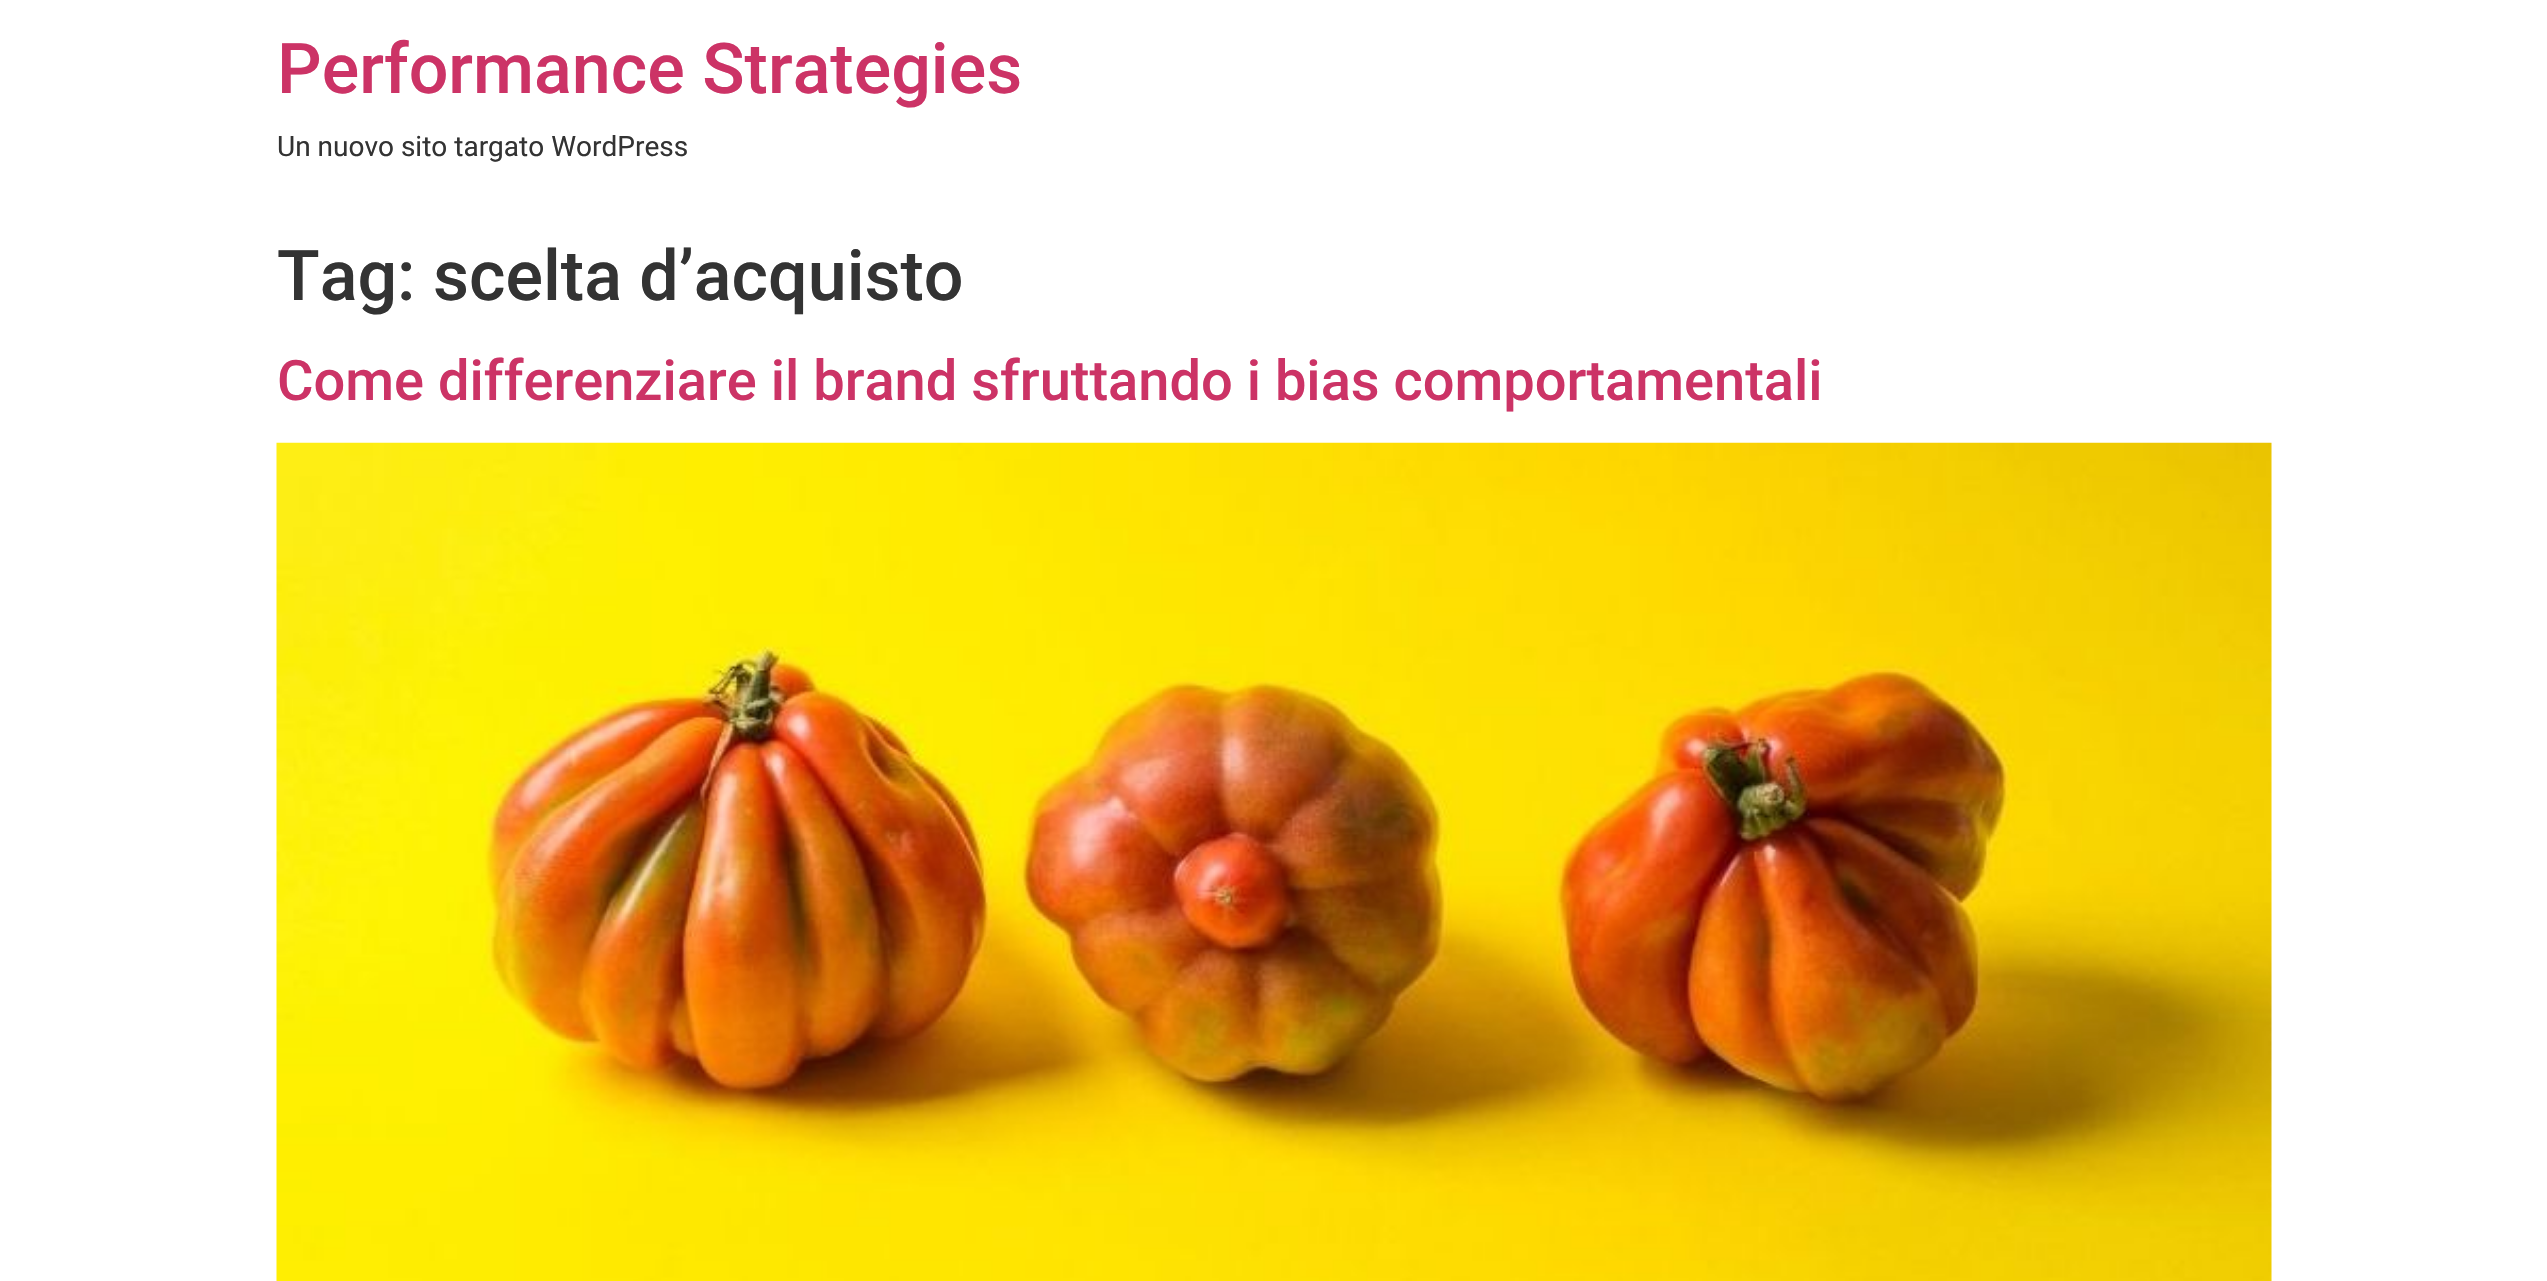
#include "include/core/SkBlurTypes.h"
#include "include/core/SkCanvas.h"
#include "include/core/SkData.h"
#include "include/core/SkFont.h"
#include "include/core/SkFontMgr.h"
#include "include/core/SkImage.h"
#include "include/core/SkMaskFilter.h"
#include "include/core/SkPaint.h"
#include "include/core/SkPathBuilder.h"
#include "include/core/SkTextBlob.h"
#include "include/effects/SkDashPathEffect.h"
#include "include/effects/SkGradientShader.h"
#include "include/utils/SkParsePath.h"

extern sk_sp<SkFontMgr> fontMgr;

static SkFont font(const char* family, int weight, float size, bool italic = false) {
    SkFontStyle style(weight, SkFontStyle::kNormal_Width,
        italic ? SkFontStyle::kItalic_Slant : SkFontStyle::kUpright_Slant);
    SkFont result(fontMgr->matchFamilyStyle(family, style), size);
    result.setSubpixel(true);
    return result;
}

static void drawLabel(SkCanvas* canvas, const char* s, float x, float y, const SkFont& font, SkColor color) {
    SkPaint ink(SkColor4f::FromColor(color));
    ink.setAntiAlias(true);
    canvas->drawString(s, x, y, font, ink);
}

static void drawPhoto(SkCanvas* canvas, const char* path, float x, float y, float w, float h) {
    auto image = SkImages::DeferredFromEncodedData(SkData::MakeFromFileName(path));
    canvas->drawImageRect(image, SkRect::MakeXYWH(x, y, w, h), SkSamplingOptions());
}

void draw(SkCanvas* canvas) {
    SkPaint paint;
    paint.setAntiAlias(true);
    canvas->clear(0xFFFFFFFF);
    SkFont font1 = font("Roboto", 500, 70);
    drawLabel(canvas, "Performance Strategies", 277, 93, font1, 0xFFCC3366);
    SkFont font2 = font("Roboto", 400, 28);
    drawLabel(canvas, "Un nuovo sito targato WordPress", 277, 156, font2, 0xFF333333);
    drawLabel(canvas, "Tag: scelta d’acquisto", 277, 300, font1, 0xFF333333);
    SkFont font3 = font("Roboto", 500, 56);
    drawLabel(canvas, "Come differenziare il brand sfruttando i bias comportamentali", 277, 400, font3, 0xFFCC3366);
    drawPhoto(canvas, "assets/img1.png", 276, 442, 1996, 839);
}
